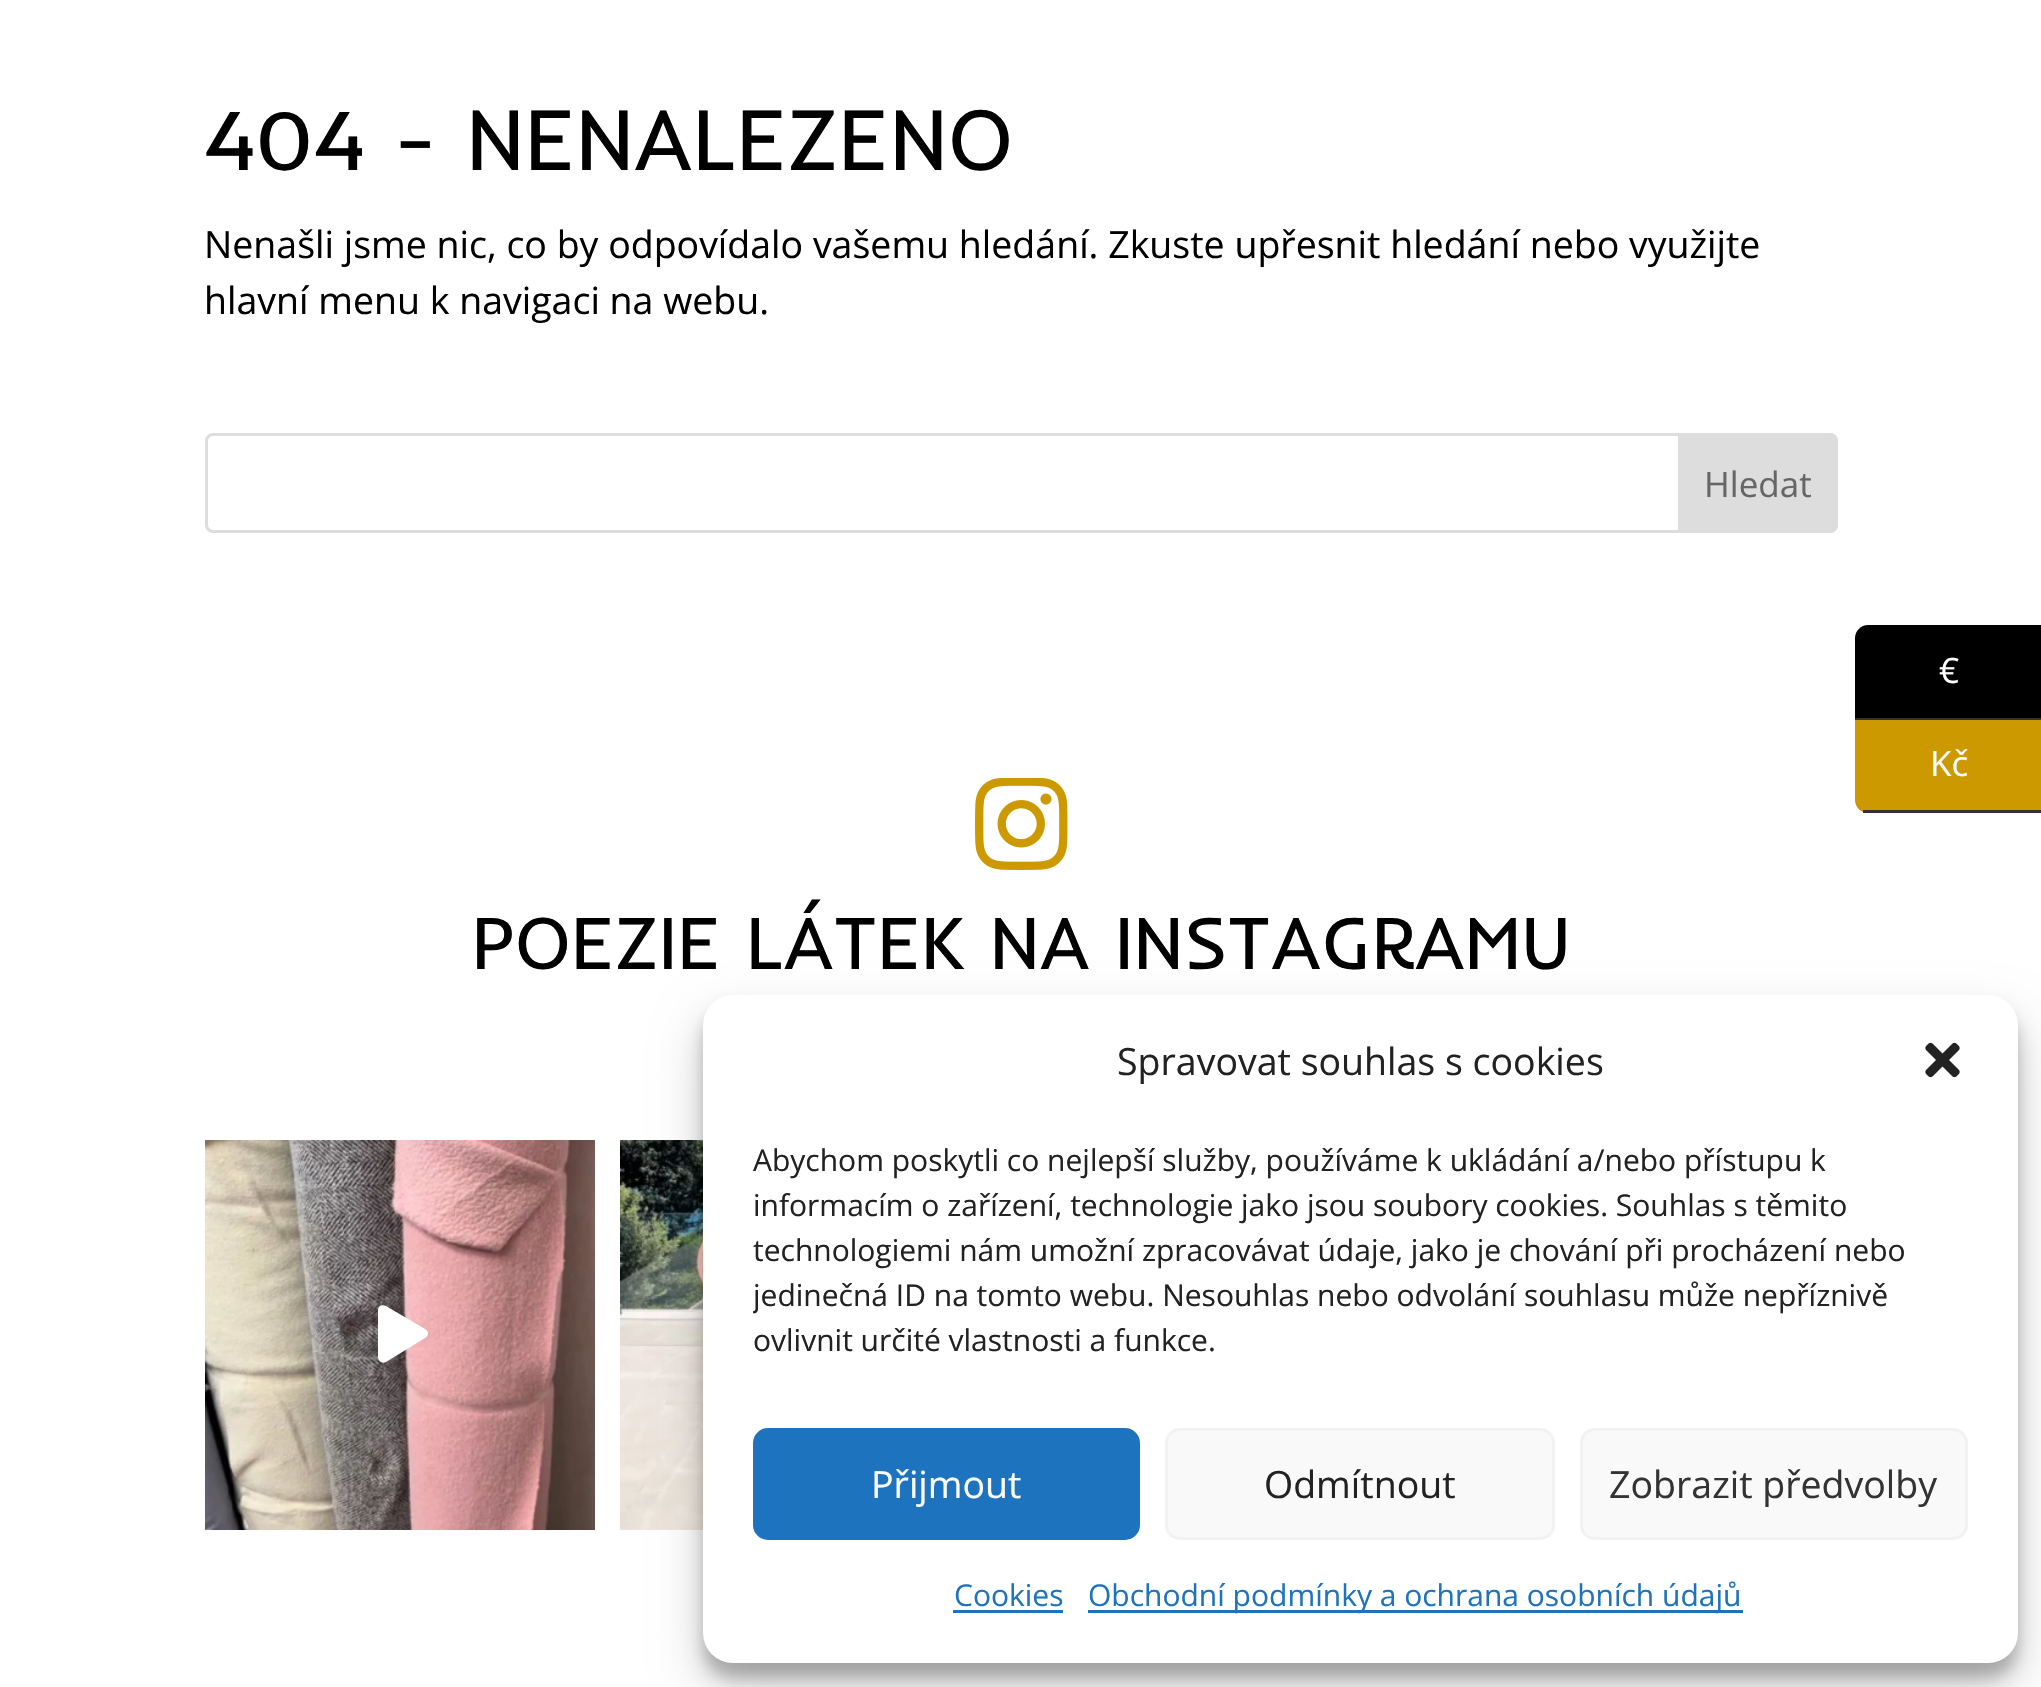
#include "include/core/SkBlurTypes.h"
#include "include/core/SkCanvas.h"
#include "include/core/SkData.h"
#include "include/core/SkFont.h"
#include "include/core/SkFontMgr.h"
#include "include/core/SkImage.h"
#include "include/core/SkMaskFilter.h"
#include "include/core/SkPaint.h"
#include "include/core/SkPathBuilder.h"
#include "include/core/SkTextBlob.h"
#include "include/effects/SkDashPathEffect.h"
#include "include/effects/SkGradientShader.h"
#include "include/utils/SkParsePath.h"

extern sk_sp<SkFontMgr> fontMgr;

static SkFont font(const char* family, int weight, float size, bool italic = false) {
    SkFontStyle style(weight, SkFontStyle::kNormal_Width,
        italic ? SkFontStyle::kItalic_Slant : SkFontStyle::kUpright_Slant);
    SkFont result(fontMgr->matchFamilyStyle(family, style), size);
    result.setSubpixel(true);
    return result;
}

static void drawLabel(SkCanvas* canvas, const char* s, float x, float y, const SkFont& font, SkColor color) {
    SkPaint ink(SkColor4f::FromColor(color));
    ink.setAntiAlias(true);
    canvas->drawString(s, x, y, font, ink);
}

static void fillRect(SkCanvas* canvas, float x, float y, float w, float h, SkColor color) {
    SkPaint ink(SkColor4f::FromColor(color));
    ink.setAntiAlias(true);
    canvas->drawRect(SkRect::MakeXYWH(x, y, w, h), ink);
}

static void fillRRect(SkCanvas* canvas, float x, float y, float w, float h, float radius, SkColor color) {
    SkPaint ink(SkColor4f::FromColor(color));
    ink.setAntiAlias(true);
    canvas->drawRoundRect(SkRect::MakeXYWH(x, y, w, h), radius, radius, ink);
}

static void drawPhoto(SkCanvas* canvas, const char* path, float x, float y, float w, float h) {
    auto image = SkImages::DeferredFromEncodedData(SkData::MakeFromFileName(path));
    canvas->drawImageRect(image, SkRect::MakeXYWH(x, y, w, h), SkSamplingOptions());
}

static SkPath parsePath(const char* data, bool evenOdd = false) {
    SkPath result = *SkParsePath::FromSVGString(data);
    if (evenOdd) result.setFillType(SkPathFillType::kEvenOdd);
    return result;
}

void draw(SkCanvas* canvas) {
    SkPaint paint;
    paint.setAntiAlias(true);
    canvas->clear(0xFFFFFFFF);
    SkFont font1 = font("Inder", 400, 87.5f);
    drawLabel(canvas, "404 - NENALEZENO", 204, 170, font1, 0xFF000000);
    SkFont font2 = font("Open Sans", 400, 37.5f);
    drawLabel(canvas, "Nenašli jsme nic, co by odpovídalo vašemu hledání. Zkuste upřesnit hledání nebo využijte", 204, 258, font2, 0xFF000000);
    drawLabel(canvas, "hlavní menu k navigaci na webu.", 204, 314, font2, 0xFF000000);
    paint.setStroke(true);
    paint.setStrokeWidth(3);
    paint.setColor(0xFFDDDDDD);
    canvas->drawRoundRect(SkRect::MakeXYWH(206.5f, 434.5f, 1630, 97), 6.5f, 6.5f, paint);
    paint.setStroke(false);
    canvas->drawPath(parsePath("M1679.5 434.5H1830C1833.5 434.5 1836.5 437.5 1836.5 441V525C1836.5 528.5 1833.5 531.5 1830 531.5H1679.5Z"), paint);
    paint.setStroke(true);
    canvas->drawPath(parsePath("M1679.5 434.5H1830C1833.5 434.5 1836.5 437.5 1836.5 441V525C1836.5 528.5 1833.5 531.5 1830 531.5H1679.5Z"), paint);
    SkFont font3 = font("Open Sans", 400, 35);
    drawLabel(canvas, "Hledat", 1704, 497, font3, 0xFF666666);
    drawPhoto(canvas, "assets/img1.png", 975, 778, 93, 92);
    SkFont font4 = font("Inder", 400, 75);
    drawLabel(canvas, "POEZIE LÁTEK NA INSTAGRAMU", 471, 969, font4, 0xFF000000);
    drawPhoto(canvas, "assets/img2.png", 205, 1140, 390, 390);
    paint.setStroke(false);
    paint.setColor(0xFFFFFFFF);
    canvas->drawPath(parsePath("M425 1329L386 1306C382 1304 378 1306 378 1310V1357C378 1361 382 1364 386 1362L425 1338C429 1336 429 1331 425 1329Z"), paint);
    drawPhoto(canvas, "assets/img3.png", 620, 1140, 83, 390);
    paint.setColor(0xFF000000);
    canvas->drawPath(parsePath("M1868 625H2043V720H1855V638C1855 631 1861 625 1868 625Z"), paint);
    fillRect(canvas, 1855, 718, 186, 2, 0xFF333333);
    drawLabel(canvas, "€", 1939, 683, font3, 0xFFFFFFFF);
    paint.setColor(0xFFCC9900);
    canvas->drawPath(parsePath("M1855 720H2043V813H1868C1861 813 1855 807 1855 800Z"), paint);
    fillRect(canvas, 1863, 810, 178, 3, 0xFF333333);
    drawLabel(canvas, "Kč", 1930, 776, font3, 0xFFFFFFFF);
    paint.setColor(0x3B000000);
    paint.setMaskFilter(SkMaskFilter::MakeBlur(kNormal_SkBlurStyle, 7.5f));
    canvas->drawRoundRect(SkRect::MakeXYWH(703, 1010, 1315, 668), 30, 30, paint);
    paint.setMaskFilter(nullptr);
    paint.setColor(0x30000000);
    paint.setMaskFilter(SkMaskFilter::MakeBlur(kNormal_SkBlurStyle, 25));
    canvas->drawRoundRect(SkRect::MakeXYWH(703, 1020, 1315, 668), 30, 30, paint);
    paint.setMaskFilter(nullptr);
    fillRRect(canvas, 703, 995, 1315, 668, 30, 0xFFFFFFFF);
    drawLabel(canvas, "Spravovat souhlas s cookies", 1117, 1075, font2, 0xFF222222);
    drawPhoto(canvas, "assets/img4.png", 1925, 1042, 35, 36);
    SkFont font5 = font("Open Sans", 400, 30);
    drawLabel(canvas, "Abychom poskytli co nejlepší služby, používáme k ukládání a/nebo přístupu k", 753, 1171, font5, 0xFF222222);
    drawLabel(canvas, "informacím o zařízení, technologie jako jsou soubory cookies. Souhlas s těmito", 753, 1216, font5, 0xFF222222);
    drawLabel(canvas, "technologiemi nám umožní zpracovávat údaje, jako je chování při procházení nebo", 753, 1261, font5, 0xFF222222);
    canvas->save();
    canvas->clipRect(SkRect::MakeXYWH(753, 1140, 1215, 238));
    drawLabel(canvas, "jedinečná ID na tomto webu. Nesouhlas nebo odvolání souhlasu může nepříznivě", 753, 1306, font5, 0xFF222222);
    canvas->restore();
    drawLabel(canvas, "ovlivnit určité vlastnosti a funkce.", 753, 1351, font5, 0xFF222222);
    paint.setColor(0xFF1E73BE);
    canvas->drawRoundRect(SkRect::MakeXYWH(754.5f, 1429.5f, 384, 109), 13.5f, 13.5f, paint);
    paint.setStroke(true);
    canvas->drawRoundRect(SkRect::MakeXYWH(754.5f, 1429.5f, 384, 109), 13.5f, 13.5f, paint);
    drawLabel(canvas, "Přijmout", 871, 1498, font2, 0xFFFFFFFF);
    paint.setStroke(false);
    paint.setColor(0xFFF9F9F9);
    canvas->drawRoundRect(SkRect::MakeXYWH(1166.5f, 1429.5f, 387, 109), 13.5f, 13.5f, paint);
    paint.setStroke(true);
    paint.setColor(0xFFF2F2F2);
    canvas->drawRoundRect(SkRect::MakeXYWH(1166.5f, 1429.5f, 387, 109), 13.5f, 13.5f, paint);
    drawLabel(canvas, "Odmítnout", 1264, 1498, font2, 0xFF222222);
    paint.setStroke(false);
    paint.setColor(0xFFF9F9F9);
    canvas->drawRoundRect(SkRect::MakeXYWH(1581.5f, 1429.5f, 385, 109), 13.5f, 13.5f, paint);
    paint.setStroke(true);
    paint.setColor(0xFFF2F2F2);
    canvas->drawRoundRect(SkRect::MakeXYWH(1581.5f, 1429.5f, 385, 109), 13.5f, 13.5f, paint);
    drawLabel(canvas, "Zobrazit předvolby", 1609, 1498, font2, 0xFF333333);
    drawLabel(canvas, "Cookies", 954, 1606, font5, 0xFF1E73BE);
    fillRect(canvas, 953, 1610, 110, 3, 0xFF1E73BE);
    fillRect(canvas, 1088, 1610, 655, 3, 0xFF1E73BE);
    drawLabel(canvas, "Obchodní podmínky a ochrana osobních údajů", 1088, 1606, font5, 0xFF1E73BE);
}
